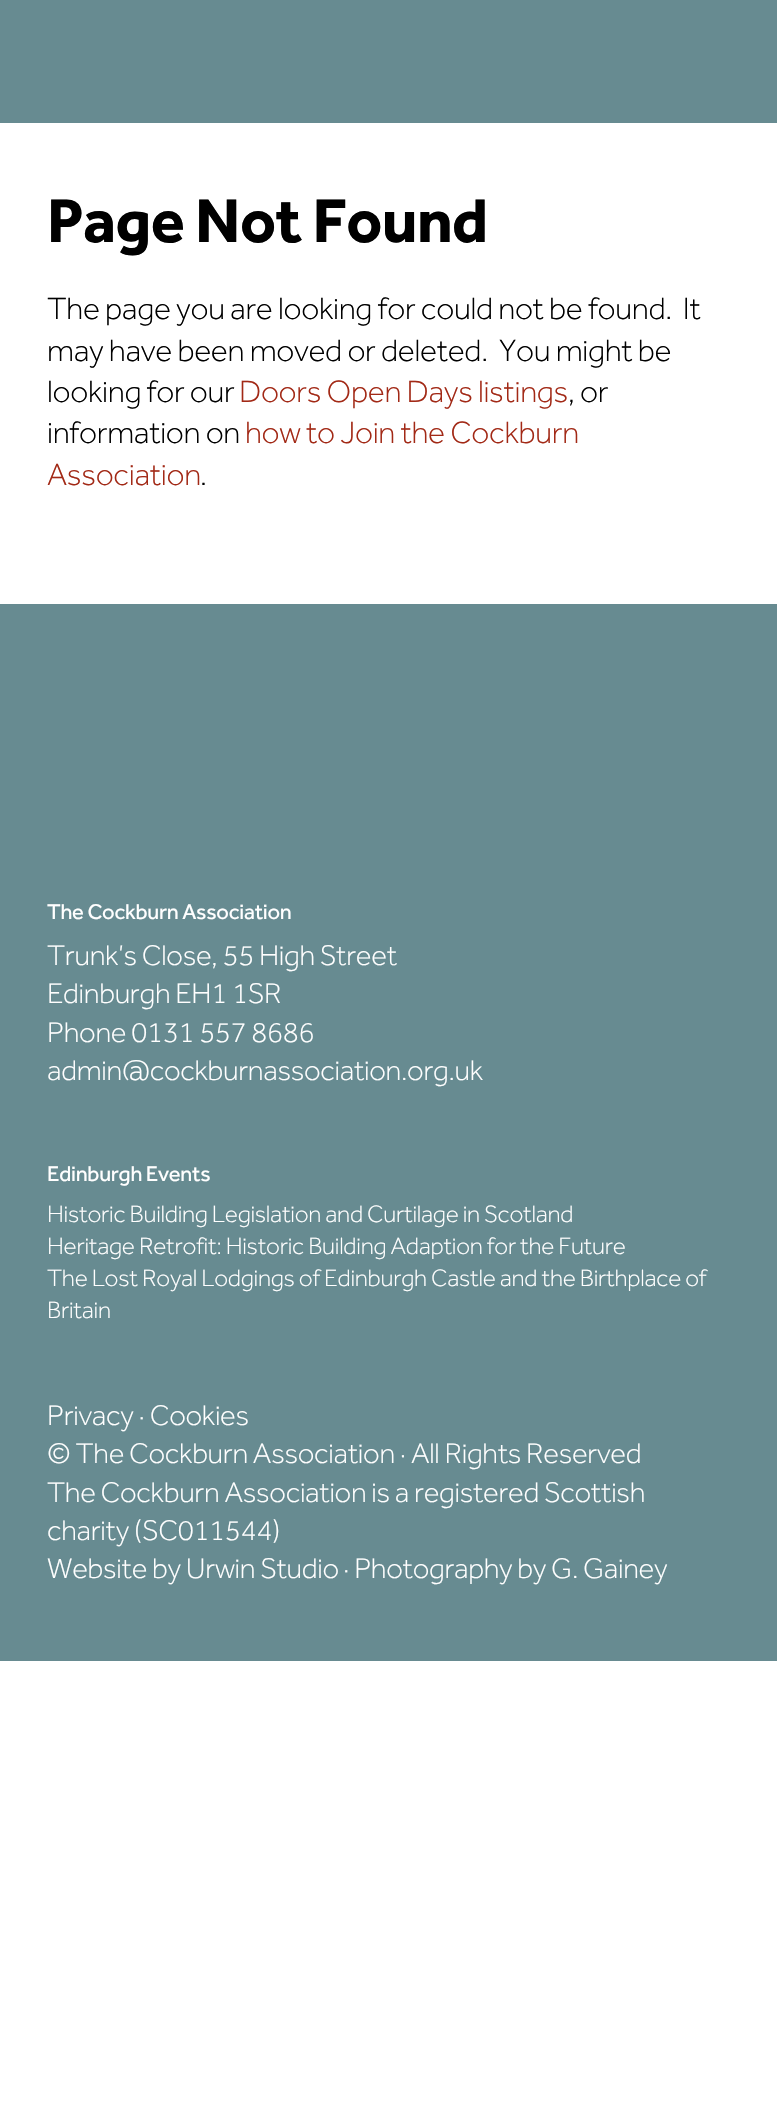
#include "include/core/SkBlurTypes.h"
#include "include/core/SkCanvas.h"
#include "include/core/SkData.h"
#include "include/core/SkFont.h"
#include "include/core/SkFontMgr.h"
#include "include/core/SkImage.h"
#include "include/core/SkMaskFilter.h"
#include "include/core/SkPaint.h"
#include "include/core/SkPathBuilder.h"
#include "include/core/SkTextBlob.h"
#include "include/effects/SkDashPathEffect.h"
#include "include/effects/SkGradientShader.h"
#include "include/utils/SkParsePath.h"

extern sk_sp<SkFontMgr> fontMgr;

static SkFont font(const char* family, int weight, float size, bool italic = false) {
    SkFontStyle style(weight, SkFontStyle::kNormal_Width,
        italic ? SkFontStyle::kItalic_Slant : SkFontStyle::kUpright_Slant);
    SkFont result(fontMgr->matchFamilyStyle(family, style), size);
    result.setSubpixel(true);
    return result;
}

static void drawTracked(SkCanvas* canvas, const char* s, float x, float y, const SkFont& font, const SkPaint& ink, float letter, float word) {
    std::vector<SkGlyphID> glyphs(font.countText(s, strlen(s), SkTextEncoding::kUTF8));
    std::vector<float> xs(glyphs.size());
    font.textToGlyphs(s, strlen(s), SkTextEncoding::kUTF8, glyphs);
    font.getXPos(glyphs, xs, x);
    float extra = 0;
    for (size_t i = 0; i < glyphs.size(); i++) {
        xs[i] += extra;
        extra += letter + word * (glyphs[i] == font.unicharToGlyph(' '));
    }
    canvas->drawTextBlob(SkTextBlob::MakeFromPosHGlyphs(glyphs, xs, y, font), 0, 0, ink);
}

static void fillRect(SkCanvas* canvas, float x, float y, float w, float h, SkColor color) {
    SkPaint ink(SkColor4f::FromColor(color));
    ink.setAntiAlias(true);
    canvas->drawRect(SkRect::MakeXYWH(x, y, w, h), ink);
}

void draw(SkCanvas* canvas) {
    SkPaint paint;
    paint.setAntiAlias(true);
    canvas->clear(0xFFFFFFFF);
    fillRect(canvas, 0, 0, 777, 123, 0xFF678B91);
    SkFont font1 = font("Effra", 700, 63.75f);
    paint.setColor(0xFF000000);
    drawTracked(canvas, "Page Not Found", 47, 242, font1, paint, -0.6f, 0);
    SkFont font2 = font("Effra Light", 300, 31.85f);
    drawTracked(canvas, "The page you are looking for could not be found.  It", 47, 319, font2, paint, -0.32f, 0);
    drawTracked(canvas, "may have been moved or deleted.  You might be", 47, 361, font2, paint, -0.32f, 0);
    drawTracked(canvas, "looking for our", 47, 402, font2, paint, -0.32f, 0);
    paint.setColor(0xFFA22916);
    drawTracked(canvas, "Doors Open Days listings", 239, 402, font2, paint, -0.32f, 0);
    paint.setColor(0xFF000000);
    drawTracked(canvas, ", or", 568, 402, font2, paint, -0.32f, 0);
    drawTracked(canvas, "information on", 47, 443, font2, paint, -0.32f, 0);
    paint.setColor(0xFFA22916);
    drawTracked(canvas, "how to Join the Cockburn", 245, 443, font2, paint, -0.32f, 0);
    drawTracked(canvas, "Association", 47, 485, font2, paint, -0.32f, 0);
    paint.setColor(0xFF000000);
    drawTracked(canvas, ".", 200, 485, font2, paint, -0.32f, 0);
    fillRect(canvas, 0, 604, 777, 1057, 0xFF678B91);
    SkFont font3 = font("Effra", 400, 22);
    paint.setColor(0xFFFFFFFF);
    drawTracked(canvas, "The Cockburn Association", 47, 919, font3, paint, -0.25f, 0);
    SkFont font4 = font("Effra Light", 300, 29.4f);
    drawTracked(canvas, "Trunk’s Close, 55 High Street", 47, 965, font4, paint, -0.3f, 0);
    drawTracked(canvas, "Edinburgh EH1 1SR", 47, 1003, font4, paint, -0.3f, 0);
    drawTracked(canvas, "Phone 0131 557 8686", 47, 1042, font4, paint, -0.3f, 0);
    drawTracked(canvas, "admin@cockburnassociation.org.uk", 47, 1080, font4, paint, -0.3f, 0);
    drawTracked(canvas, "Edinburgh Events", 47, 1181, font3, paint, -0.25f, 0);
    SkFont font5 = font("Effra Light", 300, 24.5f);
    drawTracked(canvas, "Historic Building Legislation and Curtilage in Scotland", 47, 1222, font5, paint, -0.25f, 0);
    drawTracked(canvas, "Heritage Retrofit: Historic Building Adaption for the Future", 47, 1254, font5, paint, -0.25f, 0);
    drawTracked(canvas, "The Lost Royal Lodgings of Edinburgh Castle and the Birthplace of", 47, 1286, font5, paint, -0.25f, 0);
    drawTracked(canvas, "Britain", 47, 1318, font5, paint, -0.25f, 0);
    drawTracked(canvas, "Privacy · Cookies", 47, 1425, font4, paint, -0.3f, 0);
    drawTracked(canvas, "© The Cockburn Association · All Rights Reserved", 47, 1463, font4, paint, -0.3f, 0);
    drawTracked(canvas, "The Cockburn Association is a registered Scottish", 47, 1502, font4, paint, -0.3f, 0);
    drawTracked(canvas, "charity (SC011544)", 47, 1540, font4, paint, -0.3f, 0);
    drawTracked(canvas, "Website by Urwin Studio", 47, 1578, font4, paint, -0.3f, 0);
    drawTracked(canvas, "· Photography by G. Gainey", 343, 1578, font4, paint, -0.3f, 0);
}
